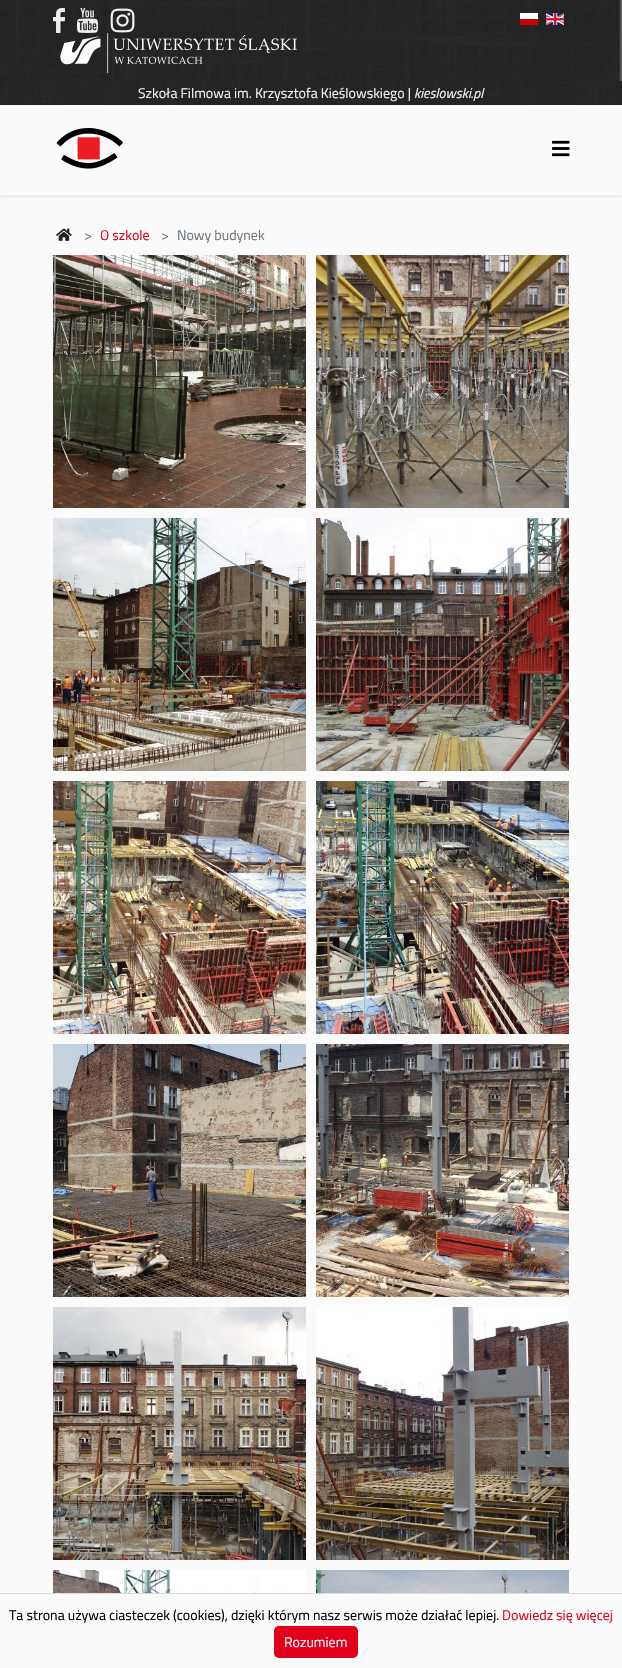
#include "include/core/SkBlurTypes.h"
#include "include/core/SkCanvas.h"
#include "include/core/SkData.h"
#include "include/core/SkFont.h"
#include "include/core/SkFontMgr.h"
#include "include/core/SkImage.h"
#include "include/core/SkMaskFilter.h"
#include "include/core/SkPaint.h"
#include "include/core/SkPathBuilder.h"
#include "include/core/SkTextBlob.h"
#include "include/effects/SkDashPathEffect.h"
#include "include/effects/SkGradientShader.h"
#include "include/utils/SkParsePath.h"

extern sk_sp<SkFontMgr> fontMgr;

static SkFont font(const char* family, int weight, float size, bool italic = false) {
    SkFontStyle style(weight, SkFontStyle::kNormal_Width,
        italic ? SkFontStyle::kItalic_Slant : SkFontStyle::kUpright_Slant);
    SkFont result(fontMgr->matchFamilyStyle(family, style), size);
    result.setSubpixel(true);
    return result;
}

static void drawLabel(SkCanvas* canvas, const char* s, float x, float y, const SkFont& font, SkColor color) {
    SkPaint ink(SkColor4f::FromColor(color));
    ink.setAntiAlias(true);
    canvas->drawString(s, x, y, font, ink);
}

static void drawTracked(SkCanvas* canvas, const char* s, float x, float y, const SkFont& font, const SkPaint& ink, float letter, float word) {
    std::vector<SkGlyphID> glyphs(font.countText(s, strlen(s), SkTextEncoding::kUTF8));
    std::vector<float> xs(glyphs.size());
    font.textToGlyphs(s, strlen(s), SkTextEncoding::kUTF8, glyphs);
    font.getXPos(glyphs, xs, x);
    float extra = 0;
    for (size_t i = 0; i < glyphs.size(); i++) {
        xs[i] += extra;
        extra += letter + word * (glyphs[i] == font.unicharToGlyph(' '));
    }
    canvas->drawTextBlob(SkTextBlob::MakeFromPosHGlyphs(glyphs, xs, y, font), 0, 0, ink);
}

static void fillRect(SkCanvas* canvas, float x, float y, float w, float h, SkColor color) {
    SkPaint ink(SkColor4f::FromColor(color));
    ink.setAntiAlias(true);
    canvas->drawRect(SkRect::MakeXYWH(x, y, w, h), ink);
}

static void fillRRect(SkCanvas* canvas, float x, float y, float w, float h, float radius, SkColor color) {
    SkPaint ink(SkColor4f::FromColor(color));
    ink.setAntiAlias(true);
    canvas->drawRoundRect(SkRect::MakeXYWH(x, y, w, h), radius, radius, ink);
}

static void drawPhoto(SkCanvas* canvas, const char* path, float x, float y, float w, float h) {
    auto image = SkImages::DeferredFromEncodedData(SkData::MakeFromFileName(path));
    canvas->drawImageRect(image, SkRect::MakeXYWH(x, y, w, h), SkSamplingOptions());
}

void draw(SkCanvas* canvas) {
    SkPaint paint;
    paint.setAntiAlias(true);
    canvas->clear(0xFFFAFAFA);
    fillRect(canvas, 619, 0, 3, 81, 0xFFF5F5F5);
    drawPhoto(canvas, "assets/img1.png", 0, 0, 622, 81);
    drawPhoto(canvas, "assets/img2.png", 53, 8, 12, 25);
    drawPhoto(canvas, "assets/img3.png", 77, 8, 21, 25);
    drawPhoto(canvas, "assets/img4.png", 110, 8, 25, 25);
    drawPhoto(canvas, "assets/img5.png", 60, 33, 237, 40);
    drawPhoto(canvas, "assets/img6.png", 520, 13, 18, 12);
    drawPhoto(canvas, "assets/img7.png", 546, 13, 18, 12);
    drawPhoto(canvas, "assets/img8.png", 0, 81, 622, 24);
    SkFont font1 = font("Titillium Web", 400, 14);
    drawLabel(canvas, "Szkoła Filmowa im. Krzysztofa Kieślowskiego |", 138, 98, font1, 0xFFF0F0F0);
    SkFont font2 = font("Titillium Web", 400, 14, true);
    drawLabel(canvas, "kieslowski.pl", 414, 98, font2, 0xFFF0F0F0);
    canvas->save();
    canvas->clipRect(SkRect::MakeXYWH(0, 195, 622, 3));
    paint.setColor(0x0D000000);
    paint.setMaskFilter(SkMaskFilter::MakeBlur(kNormal_SkBlurStyle, 1.5f));
    canvas->drawRect(SkRect::MakeXYWH(0, 108, 622, 90), paint);
    paint.setMaskFilter(nullptr);
    canvas->restore();
    drawPhoto(canvas, "assets/img9.png", 56, 128, 68, 41);
    drawPhoto(canvas, "assets/img10.png", 552, 140, 18, 17);
    drawPhoto(canvas, "assets/img11.png", 56, 228, 16, 13);
    drawLabel(canvas, ">", 84, 240, font1, 0xFF6C757D);
    drawLabel(canvas, "O szkole", 100, 240, font1, 0xFFE2001A);
    drawLabel(canvas, ">", 161, 240, font1, 0xFF6C757D);
    drawLabel(canvas, "Nowy budynek", 177, 240, font1, 0xFF6C757D);
    drawPhoto(canvas, "assets/img12.png", 53, 255, 253, 253);
    drawPhoto(canvas, "assets/img13.png", 316, 255, 253, 253);
    drawPhoto(canvas, "assets/img14.png", 53, 518, 253, 253);
    SkFont font3 = font("Titillium Web", 700, 13);
    paint.setColor(0xFFAC9F8E);
    drawTracked(canvas, "Konstrukcja", 63, 757, font3, paint, 1, 0);
    drawPhoto(canvas, "assets/img15.png", 316, 518, 253, 253);
    drawPhoto(canvas, "assets/img16.png", 53, 781, 253, 253);
    paint.setColor(0xFFB4AB9F);
    drawTracked(canvas, "Konstrukcja", 63, 1020, font3, paint, 1, 0);
    drawPhoto(canvas, "assets/img17.png", 316, 781, 253, 253);
    paint.setColor(0xFFA79BA2);
    drawTracked(canvas, "Konstrukcja", 326, 1020, font3, paint, 1, 0);
    drawPhoto(canvas, "assets/img18.png", 53, 1044, 253, 253);
    paint.setColor(0xFF584D46);
    drawTracked(canvas, "Konstrukcja", 63, 1283, font3, paint, 1, 0);
    drawPhoto(canvas, "assets/img19.png", 316, 1044, 253, 253);
    paint.setColor(0xFFAD9781);
    drawTracked(canvas, "Konstrukcja", 326, 1283, font3, paint, 1, 0);
    drawPhoto(canvas, "assets/img20.png", 53, 1307, 253, 253);
    drawPhoto(canvas, "assets/img21.png", 316, 1307, 253, 253);
    drawPhoto(canvas, "assets/img22.png", 53, 1570, 253, 23);
    drawPhoto(canvas, "assets/img23.png", 316, 1570, 253, 23);
    fillRect(canvas, 0, 1593, 622, 1, 0xFFDADADA);
    drawLabel(canvas, "Ta strona używa ciasteczek (cookies), dzięki którym nasz serwis może działać lepiej.", 9, 1620, font1, 0xFF000000);
    drawLabel(canvas, "Dowiedz się więcej", 502, 1620, font1, 0xFFE2001A);
    fillRRect(canvas, 274, 1626, 84, 32, 5, 0xFFE2001A);
    drawLabel(canvas, "Rozumiem", 284, 1647, font1, 0xFFFAFAFA);
}
